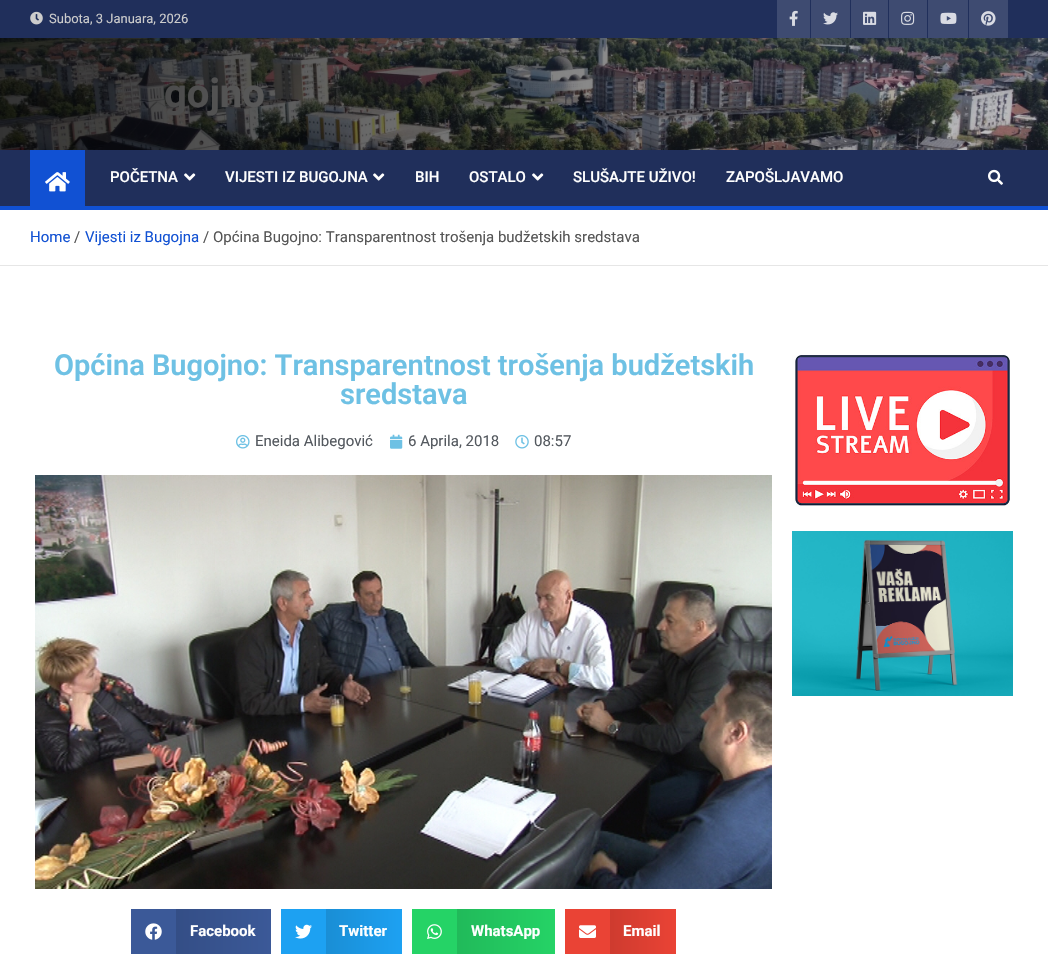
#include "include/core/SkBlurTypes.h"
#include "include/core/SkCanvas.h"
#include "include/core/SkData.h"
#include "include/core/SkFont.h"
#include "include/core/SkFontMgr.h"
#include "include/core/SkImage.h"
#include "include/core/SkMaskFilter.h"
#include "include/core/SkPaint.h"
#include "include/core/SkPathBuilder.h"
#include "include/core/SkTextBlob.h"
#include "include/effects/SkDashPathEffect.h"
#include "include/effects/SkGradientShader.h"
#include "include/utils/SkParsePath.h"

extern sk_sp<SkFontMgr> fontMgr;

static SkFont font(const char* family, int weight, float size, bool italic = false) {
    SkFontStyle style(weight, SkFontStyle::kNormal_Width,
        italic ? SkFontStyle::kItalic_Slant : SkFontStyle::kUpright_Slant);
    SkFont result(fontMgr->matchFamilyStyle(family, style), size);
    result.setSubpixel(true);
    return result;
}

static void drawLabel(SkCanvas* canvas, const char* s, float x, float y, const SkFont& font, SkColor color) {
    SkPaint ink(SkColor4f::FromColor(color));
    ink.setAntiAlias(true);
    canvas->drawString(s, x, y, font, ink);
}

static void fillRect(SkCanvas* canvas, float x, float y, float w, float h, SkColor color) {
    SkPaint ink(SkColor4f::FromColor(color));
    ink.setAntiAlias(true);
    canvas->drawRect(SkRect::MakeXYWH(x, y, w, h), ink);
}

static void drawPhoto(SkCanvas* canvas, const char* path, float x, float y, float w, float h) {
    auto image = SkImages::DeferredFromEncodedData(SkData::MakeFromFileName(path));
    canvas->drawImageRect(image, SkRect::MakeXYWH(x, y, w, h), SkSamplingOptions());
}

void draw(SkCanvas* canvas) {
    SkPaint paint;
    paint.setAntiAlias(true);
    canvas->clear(0xFFFFFFFF);
    fillRect(canvas, 0, 0, 1048, 38, 0xFF202F5B);
    drawPhoto(canvas, "assets/img1.png", 30, 11, 13, 14);
    SkFont font1 = font("Roboto", 400, 13);
    drawLabel(canvas, "Subota, 3 Januara, 2026", 49, 23, font1, 0xFFCCCCCC);
    fillRect(canvas, 777, 0, 33, 38, 0xFF3E4B71);
    drawPhoto(canvas, "assets/img2.png", 789, 10, 9, 16);
    fillRect(canvas, 811, 0, 39, 38, 0xFF3E4B71);
    drawPhoto(canvas, "assets/img3.png", 823, 12, 15, 13);
    fillRect(canvas, 851, 0, 37, 38, 0xFF3E4B71);
    drawPhoto(canvas, "assets/img4.png", 863, 11, 14, 14);
    fillRect(canvas, 889, 0, 38, 38, 0xFF3E4B71);
    drawPhoto(canvas, "assets/img5.png", 901, 11, 14, 14);
    fillRect(canvas, 928, 0, 40, 38, 0xFF3E4B71);
    drawPhoto(canvas, "assets/img6.png", 940, 12, 17, 12);
    fillRect(canvas, 969, 0, 39, 38, 0xFF3E4B71);
    drawPhoto(canvas, "assets/img7.png", 981, 11, 15, 15);
    drawPhoto(canvas, "assets/img8.png", 0, 38, 1048, 112);
    SkFont font2 = font("Roboto", 700, 40);
    drawLabel(canvas, "gojno", 164, 107, font2, 0xFFFFFFFF);
    {
        const SkColor colors[] = {0xCC000000, 0x33000000};
        const float stops[] = {0, 1};
        const SkPoint ends[] = {{0, 94}, {1048, 94}};
        paint.setShader(SkGradientShader::MakeLinear(ends, colors, stops, 2, SkTileMode::kClamp));
        paint.setAlpha(255);
    }
    canvas->drawRect(SkRect::MakeXYWH(0, 38, 1048, 112), paint);
    fillRect(canvas, 0, 150, 1048, 56, 0xFF202F5B);
    fillRect(canvas, 0, 206, 1048, 4, 0xFF1151D3);
    fillRect(canvas, 30, 150, 55, 56, 0xFF1151D3);
    drawPhoto(canvas, "assets/img9.png", 45, 172, 25, 20);
    SkFont font3 = font("Roboto", 500, 15);
    drawLabel(canvas, "POČETNA", 110, 182, font3, 0xFFFFFFFF);
    drawPhoto(canvas, "assets/img10.png", 184, 173, 12, 8);
    drawLabel(canvas, "VIJESTI IZ BUGOJNA", 225, 182, font3, 0xFFFFFFFF);
    drawPhoto(canvas, "assets/img10.png", 373, 173, 12, 8);
    drawLabel(canvas, "BIH", 415, 182, font3, 0xFFFFFFFF);
    drawLabel(canvas, "OSTALO", 469, 182, font3, 0xFFFFFFFF);
    drawPhoto(canvas, "assets/img10.png", 532, 173, 12, 8);
    drawLabel(canvas, "SLUŠAJTE UŽIVO!", 573, 182, font3, 0xFFFFFFFF);
    drawLabel(canvas, "ZAPOŠLJAVAMO", 726, 182, font3, 0xFFFFFFFF);
    drawPhoto(canvas, "assets/img11.png", 988, 169, 15, 16);
    fillRect(canvas, 0, 265, 1048, 1, 0xFFE6E6E6);
    SkFont font4 = font("Roboto", 400, 15);
    drawLabel(canvas, "Home", 30, 242, font4, 0xFF1151D3);
    drawLabel(canvas, "/", 74, 242, font4, 0xFF555555);
    drawLabel(canvas, "Vijesti iz Bugojna", 85, 242, font4, 0xFF1151D3);
    drawLabel(canvas, "/ Općina Bugojno: Transparentnost trošenja budžetskih sredstava", 203, 242, font4, 0xFF555555);
    SkFont font5 = font("Roboto", 600, 29);
    drawLabel(canvas, "Općina Bugojno: Transparentnost trošenja budžetskih", 54, 375, font5, 0xFF6EC1E4);
    drawLabel(canvas, "sredstava", 340, 404, font5, 0xFF6EC1E4);
    drawPhoto(canvas, "assets/img12.png", 236, 435, 14, 14);
    drawLabel(canvas, "Eneida Alibegović", 255, 446, font4, 0xFF54595F);
    drawPhoto(canvas, "assets/img13.png", 390, 434, 13, 15);
    drawLabel(canvas, "6 Aprila, 2018", 408, 446, font4, 0xFF54595F);
    drawPhoto(canvas, "assets/img14.png", 515, 435, 14, 14);
    drawLabel(canvas, "08:57", 534, 446, font4, 0xFF54595F);
    drawPhoto(canvas, "assets/img15.png", 35, 475, 737, 414);
    fillRect(canvas, 131, 909, 45, 45, 0xFF3B5998);
    drawPhoto(canvas, "assets/img16.png", 145, 923, 17, 17);
    {
        const SkColor colors[] = {0xFF344E86, 0xFF3B5998};
        const float stops[] = {0, 1};
        const SkPoint ends[] = {{176, 932}, {271, 932}};
        paint.setShader(SkGradientShader::MakeLinear(ends, colors, stops, 2, SkTileMode::kClamp));
        paint.setAlpha(255);
    }
    canvas->drawRect(SkRect::MakeXYWH(176, 909, 95, 45), paint);
    SkFont font6 = font("Roboto", 700, 15);
    drawLabel(canvas, "Facebook", 190, 936, font6, 0xFFFFFFFF);
    fillRect(canvas, 281, 909, 45, 45, 0xFF1DA1F2);
    drawPhoto(canvas, "assets/img17.png", 295, 924, 17, 15);
    {
        const SkColor colors[] = {0xFF1A8ED5, 0xFF1DA1F2};
        const float stops[] = {0, 1};
        const SkPoint ends[] = {{326, 932}, {402, 932}};
        paint.setShader(SkGradientShader::MakeLinear(ends, colors, stops, 2, SkTileMode::kClamp));
        paint.setAlpha(255);
    }
    canvas->drawRect(SkRect::MakeXYWH(326, 909, 76, 45), paint);
    drawLabel(canvas, "Twitter", 339, 936, font6, 0xFFFFFFFF);
    fillRect(canvas, 412, 909, 45, 45, 0xFF25D366);
    drawPhoto(canvas, "assets/img18.png", 427, 924, 15, 15);
    {
        const SkColor colors[] = {0xFF21BA5A, 0xFF25D366};
        const float stops[] = {0, 1};
        const SkPoint ends[] = {{457, 932}, {555, 932}};
        paint.setShader(SkGradientShader::MakeLinear(ends, colors, stops, 2, SkTileMode::kClamp));
        paint.setAlpha(255);
    }
    canvas->drawRect(SkRect::MakeXYWH(457, 909, 98, 45), paint);
    drawLabel(canvas, "WhatsApp", 471, 936, font6, 0xFFFFFFFF);
    fillRect(canvas, 565, 909, 45, 45, 0xFFEA4335);
    drawPhoto(canvas, "assets/img19.png", 579, 925, 17, 13);
    {
        const SkColor colors[] = {0xFFCE3B2F, 0xFFEA4335};
        const float stops[] = {0, 1};
        const SkPoint ends[] = {{610, 932}, {676, 932}};
        paint.setShader(SkGradientShader::MakeLinear(ends, colors, stops, 2, SkTileMode::kClamp));
        paint.setAlpha(255);
    }
    canvas->drawRect(SkRect::MakeXYWH(610, 909, 66, 45), paint);
    drawLabel(canvas, "Email", 623, 936, font6, 0xFFFFFFFF);
    drawPhoto(canvas, "assets/img20.png", 792, 355, 218, 152);
    drawPhoto(canvas, "assets/img21.png", 792, 531, 221, 165);
}
